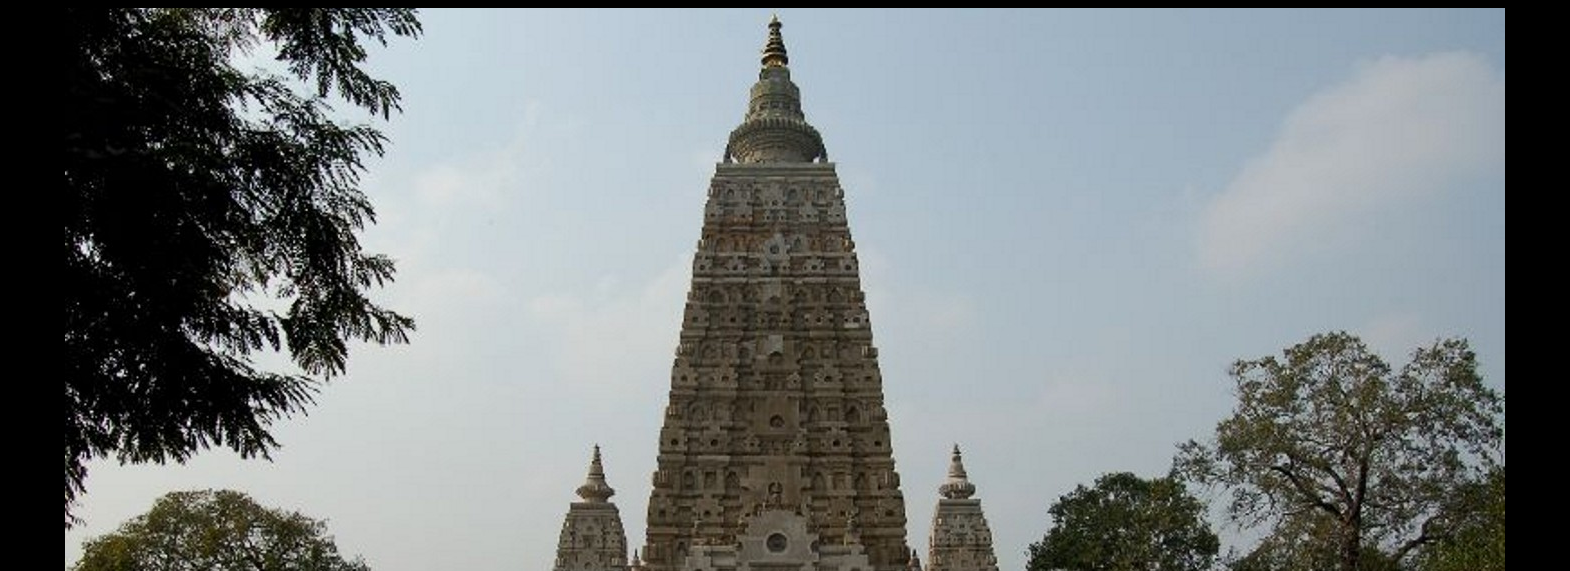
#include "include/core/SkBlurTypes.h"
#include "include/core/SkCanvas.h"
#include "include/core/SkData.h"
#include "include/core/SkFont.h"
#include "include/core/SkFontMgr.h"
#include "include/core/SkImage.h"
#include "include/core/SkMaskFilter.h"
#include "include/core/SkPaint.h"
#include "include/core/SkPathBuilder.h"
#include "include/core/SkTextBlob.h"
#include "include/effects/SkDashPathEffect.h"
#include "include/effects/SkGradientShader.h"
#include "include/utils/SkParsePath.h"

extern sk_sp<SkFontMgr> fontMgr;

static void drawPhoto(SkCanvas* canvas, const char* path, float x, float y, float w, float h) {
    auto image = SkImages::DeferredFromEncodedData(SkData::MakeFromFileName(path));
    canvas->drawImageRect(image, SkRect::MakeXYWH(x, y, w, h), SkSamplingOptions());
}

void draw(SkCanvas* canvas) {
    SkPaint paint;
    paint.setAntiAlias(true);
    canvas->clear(0xFF000000);
    drawPhoto(canvas, "assets/img1.png", 65, 8, 1440, 563);
}
